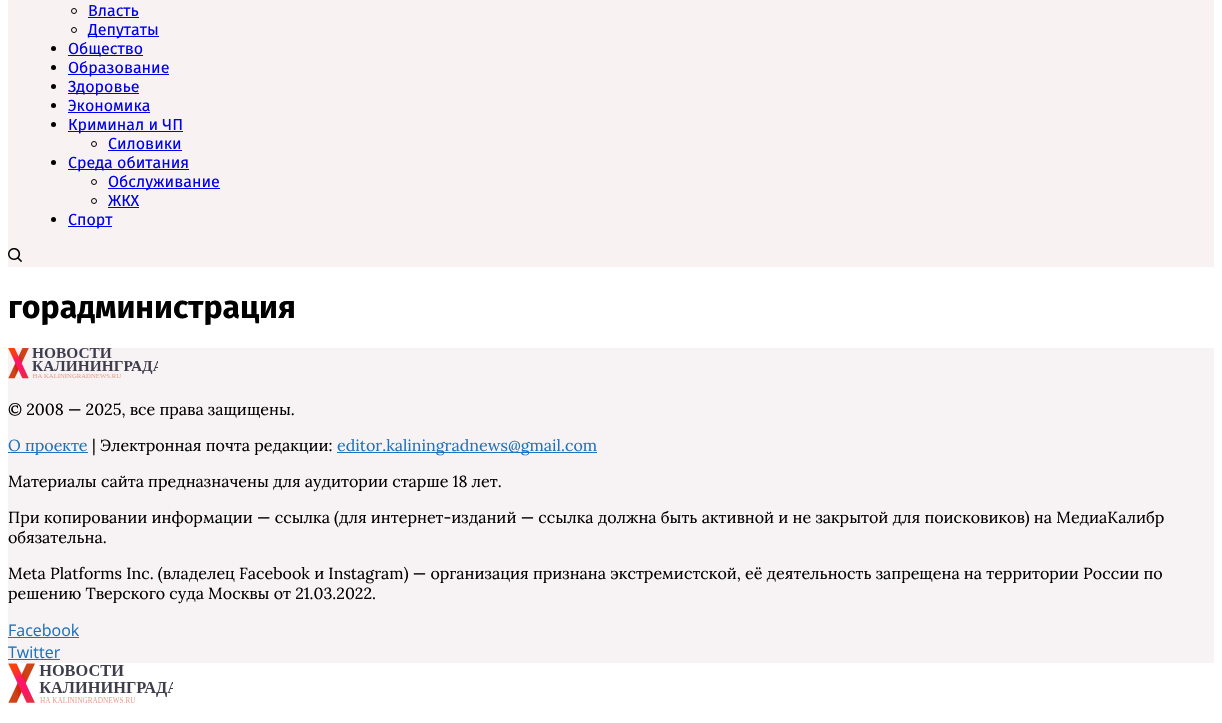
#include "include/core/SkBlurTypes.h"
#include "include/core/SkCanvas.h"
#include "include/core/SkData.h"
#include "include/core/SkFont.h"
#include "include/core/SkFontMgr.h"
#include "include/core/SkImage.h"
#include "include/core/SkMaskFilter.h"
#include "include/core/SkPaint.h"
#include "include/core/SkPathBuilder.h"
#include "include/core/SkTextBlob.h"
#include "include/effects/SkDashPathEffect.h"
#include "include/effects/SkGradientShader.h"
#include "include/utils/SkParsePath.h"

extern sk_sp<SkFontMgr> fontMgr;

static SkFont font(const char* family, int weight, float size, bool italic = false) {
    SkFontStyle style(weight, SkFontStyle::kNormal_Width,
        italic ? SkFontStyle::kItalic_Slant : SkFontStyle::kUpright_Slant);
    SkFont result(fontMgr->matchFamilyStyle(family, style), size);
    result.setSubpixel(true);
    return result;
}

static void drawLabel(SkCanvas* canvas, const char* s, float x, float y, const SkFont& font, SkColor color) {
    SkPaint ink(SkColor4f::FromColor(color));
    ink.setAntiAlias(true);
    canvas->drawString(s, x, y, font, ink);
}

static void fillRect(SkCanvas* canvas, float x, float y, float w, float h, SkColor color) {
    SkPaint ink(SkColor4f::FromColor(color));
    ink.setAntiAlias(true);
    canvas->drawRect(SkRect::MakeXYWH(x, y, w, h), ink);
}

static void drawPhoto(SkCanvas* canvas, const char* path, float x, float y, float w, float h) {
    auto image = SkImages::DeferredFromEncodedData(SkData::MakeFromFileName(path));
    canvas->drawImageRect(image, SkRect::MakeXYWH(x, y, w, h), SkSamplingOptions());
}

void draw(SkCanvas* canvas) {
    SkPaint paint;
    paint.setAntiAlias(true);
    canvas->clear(0xFFFFFFFF);
    fillRect(canvas, 8, 0, 1206, 267, 0xFFF9F2F2);
    paint.setStroke(true);
    paint.setStrokeWidth(1);
    paint.setColor(0xFF000000);
    canvas->drawCircle(74, 11, 2.5f, paint);
    SkFont font1 = font("Fira Sans", 400, 16);
    drawLabel(canvas, "Власть", 88, 16, font1, 0xFF0000EE);
    fillRect(canvas, 88, 17, 51, 1, 0xFF0000EE);
    canvas->drawCircle(74, 30, 2.5f, paint);
    fillRect(canvas, 88, 36, 71, 1, 0xFF0000EE);
    drawLabel(canvas, "Депутаты", 88, 35, font1, 0xFF0000EE);
    paint.setStroke(false);
    canvas->drawCircle(53.5f, 48.5f, 2.5f, paint);
    fillRect(canvas, 68, 55, 75, 1, 0xFF0000EE);
    drawLabel(canvas, "Общество", 68, 54, font1, 0xFF0000EE);
    canvas->drawCircle(53.5f, 67.5f, 2.5f, paint);
    fillRect(canvas, 68, 74, 101, 1, 0xFF0000EE);
    drawLabel(canvas, "Образование", 68, 73, font1, 0xFF0000EE);
    canvas->drawCircle(53.5f, 86.5f, 2.5f, paint);
    fillRect(canvas, 68, 93, 71, 1, 0xFF0000EE);
    drawLabel(canvas, "Здоровье", 68, 92, font1, 0xFF0000EE);
    canvas->drawCircle(53.5f, 105.5f, 2.5f, paint);
    drawLabel(canvas, "Экономика", 68, 111, font1, 0xFF0000EE);
    fillRect(canvas, 68, 112, 82, 1, 0xFF0000EE);
    canvas->drawCircle(53.5f, 124.5f, 2.5f, paint);
    fillRect(canvas, 68, 131, 115, 1, 0xFF0000EE);
    drawLabel(canvas, "Криминал и ЧП", 68, 130, font1, 0xFF0000EE);
    paint.setStroke(true);
    canvas->drawCircle(94, 144, 2.5f, paint);
    drawLabel(canvas, "Силовики", 108, 149, font1, 0xFF0000EE);
    fillRect(canvas, 108, 150, 74, 1, 0xFF0000EE);
    paint.setStroke(false);
    canvas->drawCircle(53.5f, 162.5f, 2.5f, paint);
    fillRect(canvas, 68, 169, 121, 1, 0xFF0000EE);
    drawLabel(canvas, "Среда обитания", 68, 168, font1, 0xFF0000EE);
    paint.setStroke(true);
    canvas->drawCircle(94, 182, 2.5f, paint);
    fillRect(canvas, 108, 188, 112, 1, 0xFF0000EE);
    drawLabel(canvas, "Обслуживание", 108, 187, font1, 0xFF0000EE);
    canvas->drawCircle(94, 201, 2.5f, paint);
    drawLabel(canvas, "ЖКХ", 108, 206, font1, 0xFF0000EE);
    fillRect(canvas, 108, 207, 31, 1, 0xFF0000EE);
    paint.setStroke(false);
    canvas->drawCircle(53.5f, 219.5f, 2.5f, paint);
    fillRect(canvas, 68, 226, 44, 1, 0xFF0000EE);
    drawLabel(canvas, "Спорт", 68, 225, font1, 0xFF0000EE);
    drawPhoto(canvas, "assets/img1.png", 8, 248, 14, 14);
    SkFont font2 = font("Fira Sans", 700, 32);
    drawLabel(canvas, "горадминистрация", 8, 318, font2, 0xFF000000);
    fillRect(canvas, 8, 348, 1206, 315, 0xFFF7F2F4);
    drawPhoto(canvas, "assets/img2.png", 8, 348, 150, 31);
    SkFont font3 = font("Lora", 400, 16);
    drawLabel(canvas, "© 2008 — 2025, все права защищены.", 8, 415, font3, 0xFF000000);
    fillRect(canvas, 8, 452, 80, 1, 0xFF1E73BE);
    drawLabel(canvas, "О проекте", 8, 451, font3, 0xFF1E73BE);
    drawLabel(canvas, "| Электронная почта редакции:", 92, 451, font3, 0xFF000000);
    fillRect(canvas, 337, 452, 260, 1, 0xFF1E73BE);
    drawLabel(canvas, "editor.kaliningradnews@gmail.com", 337, 451, font3, 0xFF1E73BE);
    drawLabel(canvas, "Материалы сайта предназначены для аудитории старше 18 лет.", 8, 487, font3, 0xFF000000);
    drawLabel(canvas, "При копировании информации — ссылка (для интернет-изданий — ссылка должна быть активной и не закрытой для поисковиков) на МедиаКалибр", 8, 523, font3, 0xFF000000);
    drawLabel(canvas, "обязательна.", 8, 543, font3, 0xFF000000);
    drawLabel(canvas, "Meta Platforms Inc. (владелец Facebook и Instagram) — организация признана экстремистской, её деятельность запрещена на территории России по", 8, 579, font3, 0xFF000000);
    drawLabel(canvas, "решению Тверского суда Москвы от 21.03.2022.", 8, 599, font3, 0xFF000000);
    SkFont font4 = font("Open Sans", 400, 16);
    drawLabel(canvas, "Facebook", 8, 636, font4, 0xFF1E73BE);
    fillRect(canvas, 8, 637, 71, 1, 0xFF1E73BE);
    drawLabel(canvas, "Twitter", 8, 658, font4, 0xFF1E73BE);
    fillRect(canvas, 8, 659, 52, 1, 0xFF1E73BE);
    drawPhoto(canvas, "assets/img3.png", 8, 663, 165, 40);
}
